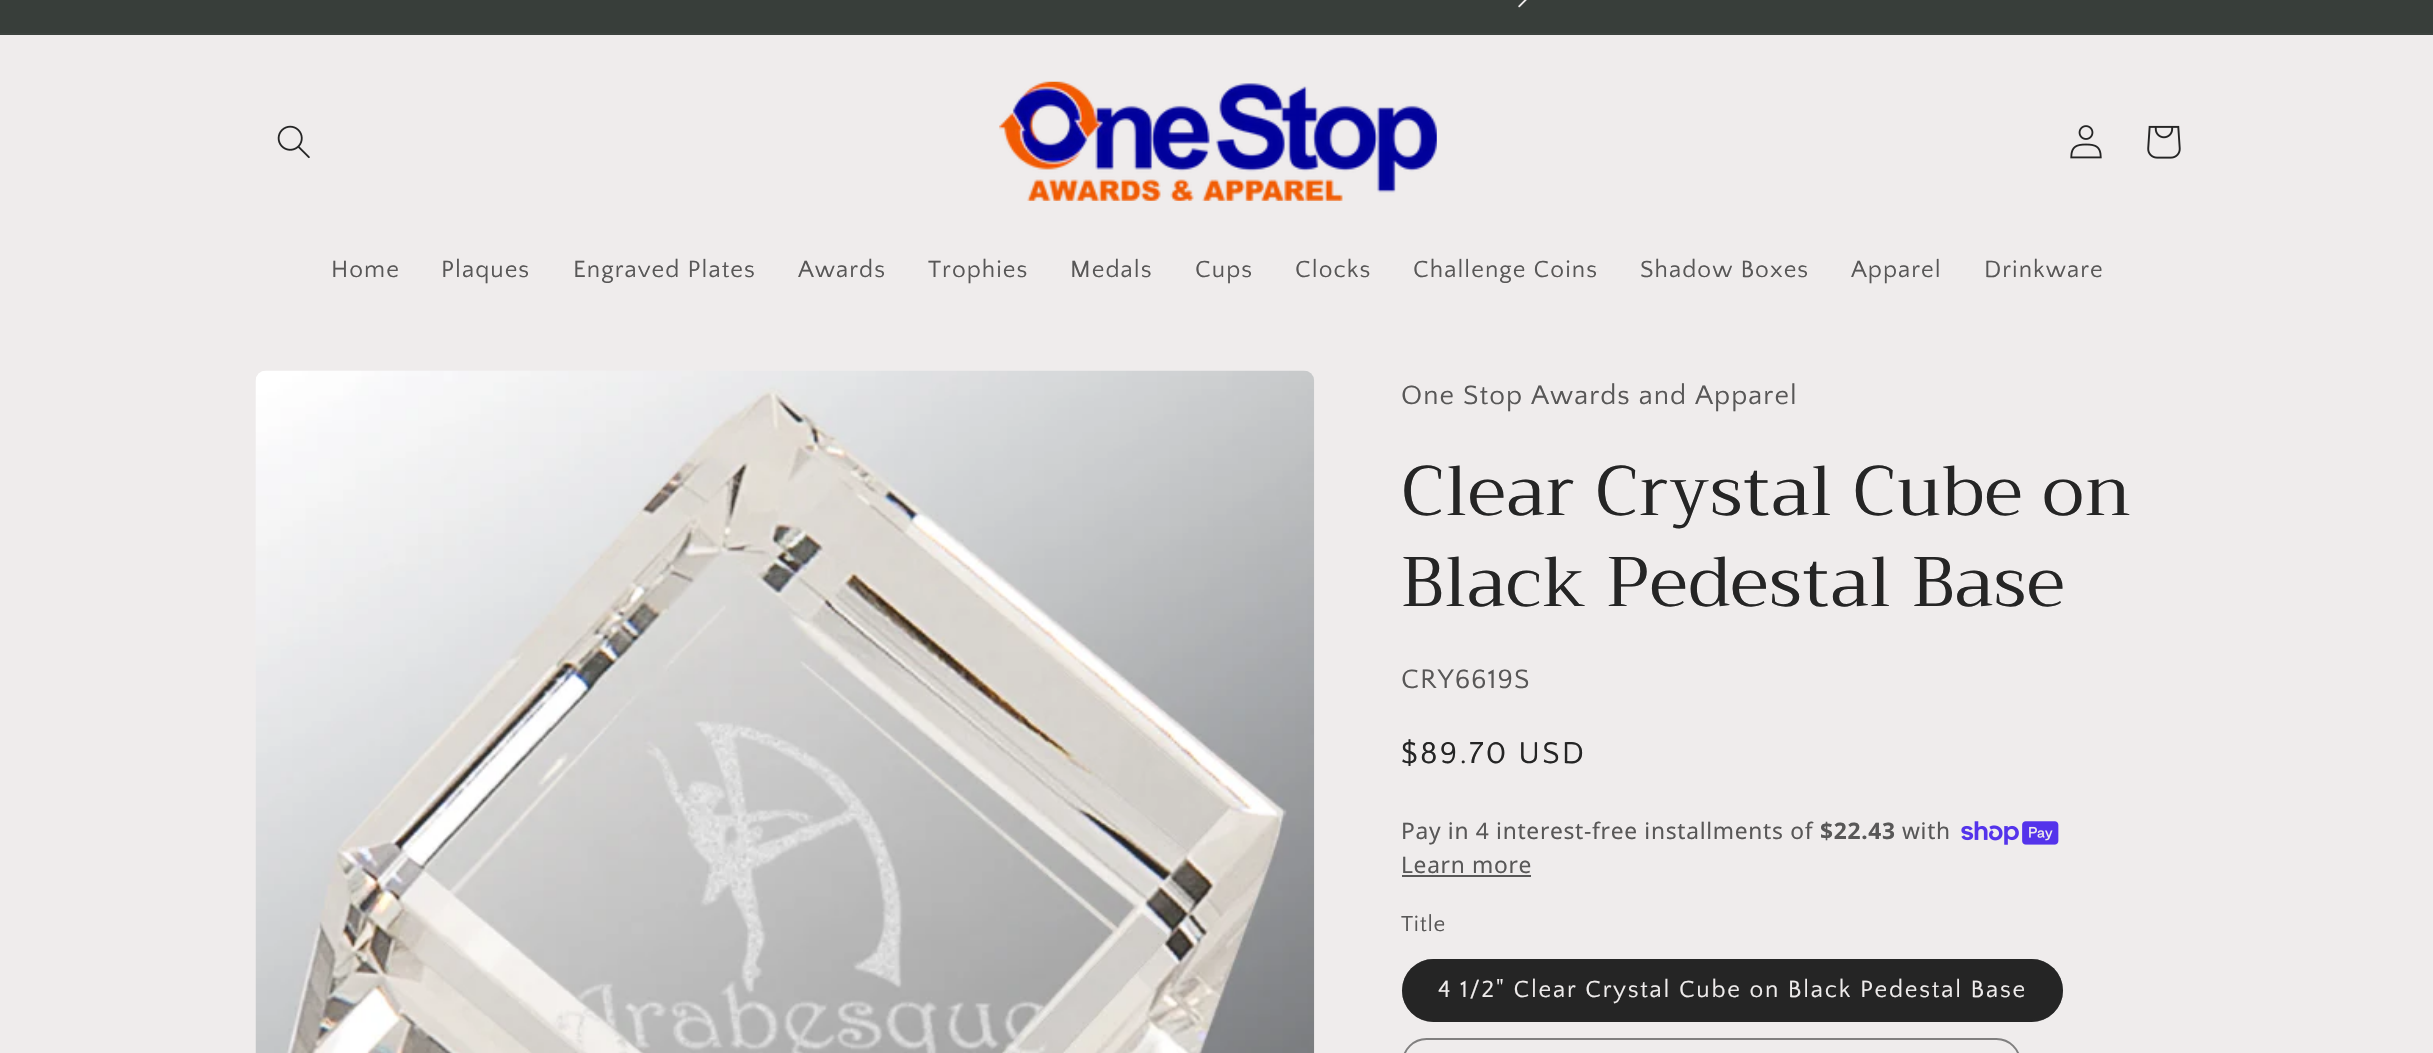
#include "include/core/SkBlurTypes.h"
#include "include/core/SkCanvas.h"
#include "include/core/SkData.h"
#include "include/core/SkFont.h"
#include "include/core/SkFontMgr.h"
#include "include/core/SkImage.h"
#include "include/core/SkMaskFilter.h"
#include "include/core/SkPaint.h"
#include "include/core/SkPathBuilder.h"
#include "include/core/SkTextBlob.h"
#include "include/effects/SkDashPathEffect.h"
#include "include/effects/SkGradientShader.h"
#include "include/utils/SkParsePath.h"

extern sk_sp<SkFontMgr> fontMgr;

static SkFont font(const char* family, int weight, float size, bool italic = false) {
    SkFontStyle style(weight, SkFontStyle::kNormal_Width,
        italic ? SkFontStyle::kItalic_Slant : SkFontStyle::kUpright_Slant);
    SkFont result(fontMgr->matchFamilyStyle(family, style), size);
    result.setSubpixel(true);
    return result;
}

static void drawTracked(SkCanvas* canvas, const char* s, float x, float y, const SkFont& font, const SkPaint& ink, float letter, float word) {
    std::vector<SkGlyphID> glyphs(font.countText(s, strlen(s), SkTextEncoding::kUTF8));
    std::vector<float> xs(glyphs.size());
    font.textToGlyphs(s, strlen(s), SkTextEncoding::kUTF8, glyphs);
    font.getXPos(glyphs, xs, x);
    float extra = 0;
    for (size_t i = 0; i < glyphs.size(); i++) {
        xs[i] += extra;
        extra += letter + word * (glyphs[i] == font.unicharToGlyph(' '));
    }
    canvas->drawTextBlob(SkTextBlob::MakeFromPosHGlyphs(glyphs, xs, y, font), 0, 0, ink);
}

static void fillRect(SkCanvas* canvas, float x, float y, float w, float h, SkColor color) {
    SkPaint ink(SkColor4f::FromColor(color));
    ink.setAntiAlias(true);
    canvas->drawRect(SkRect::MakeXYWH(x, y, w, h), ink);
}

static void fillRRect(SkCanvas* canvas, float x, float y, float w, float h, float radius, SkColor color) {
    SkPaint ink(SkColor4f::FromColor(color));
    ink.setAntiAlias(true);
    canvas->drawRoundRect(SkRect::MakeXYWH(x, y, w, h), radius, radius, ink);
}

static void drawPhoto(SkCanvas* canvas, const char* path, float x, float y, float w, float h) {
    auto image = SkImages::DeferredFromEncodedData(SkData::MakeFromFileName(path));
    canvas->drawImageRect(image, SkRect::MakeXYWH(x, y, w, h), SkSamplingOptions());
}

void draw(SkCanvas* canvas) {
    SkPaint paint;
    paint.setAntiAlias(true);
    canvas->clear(0xFFEFECEC);
    fillRect(canvas, 0, 33, 2433, 2, 0xFF3C423E);
    fillRect(canvas, 0, 0, 2433, 33, 0xFF383E3A);
    drawPhoto(canvas, "assets/img1.png", 1518, 0, 9, 8);
    drawPhoto(canvas, "assets/img2.png", 277, 125, 33, 34);
    drawPhoto(canvas, "assets/img3.png", 999, 81, 438, 120);
    drawPhoto(canvas, "assets/img4.png", 2070, 125, 32, 34);
    drawPhoto(canvas, "assets/img5.png", 2147, 125, 34, 34);
    SkFont font1 = font("Quattrocento Sans", 400, 24.5f);
    paint.setColor(0xFF585757);
    drawTracked(canvas, "Home", 331, 277, font1, paint, 1.05f, 0);
    drawTracked(canvas, "Plaques", 441, 277, font1, paint, 1.05f, 0);
    drawTracked(canvas, "Engraved Plates", 573, 277, font1, paint, 1.05f, 0);
    drawTracked(canvas, "Awards", 798, 277, font1, paint, 1.05f, 0);
    drawTracked(canvas, "Trophies", 928, 277, font1, paint, 1.05f, 0);
    drawTracked(canvas, "Medals", 1070, 277, font1, paint, 1.05f, 0);
    drawTracked(canvas, "Cups", 1195, 277, font1, paint, 1.05f, 0);
    drawTracked(canvas, "Clocks", 1295, 277, font1, paint, 1.05f, 0);
    drawTracked(canvas, "Challenge Coins", 1413, 277, font1, paint, 1.05f, 0);
    drawTracked(canvas, "Shadow Boxes", 1640, 277, font1, paint, 1.05f, 0);
    drawTracked(canvas, "Apparel", 1851, 277, font1, paint, 1.05f, 0);
    drawTracked(canvas, "Drinkware", 1984, 277, font1, paint, 1.05f, 0);
    drawPhoto(canvas, "assets/img6.png", 255, 370, 1060, 683);
    SkFont font2 = font("Quattrocento Sans", 400, 28);
    drawTracked(canvas, "One Stop Awards and Apparel", 1401, 404, font2, paint, 1.05f, 0);
    SkFont font3 = font("Trirong", 400, 70);
    paint.setColor(0xFF252525);
    drawTracked(canvas, "Clear Crystal Cube on", 1401, 515, font3, paint, 1.05f, 0);
    drawTracked(canvas, "Black Pedestal Base", 1401, 606, font3, paint, 1.05f, 0);
    paint.setColor(0xFF585757);
    drawTracked(canvas, "CRY6619S", 1401, 688, font2, paint, 1.05f, 0);
    SkFont font4 = font("Quattrocento Sans", 400, 31.5f);
    paint.setColor(0xFF252525);
    drawTracked(canvas, "$89.70 USD", 1401, 763, font4, paint, 2.25f, 0);
    SkFont font5 = font("Noto Sans", 400, 22.75f);
    paint.setColor(0xFF585757);
    drawTracked(canvas, "Pay in 4 interest-free installments of", 1401, 839, font5, paint, 0.7f, 0);
    SkFont font6 = font("Noto Sans", 700, 22.75f);
    drawTracked(canvas, "$22.43", 1820, 839, font6, paint, 0.7f, 0);
    drawTracked(canvas, "with", 1902, 839, font5, paint, 0.7f, 0);
    drawPhoto(canvas, "assets/img7.png", 1961, 821, 98, 24);
    drawTracked(canvas, "Learn more", 1401, 873, font5, paint, 0.7f, 0);
    fillRect(canvas, 1402, 875, 129, 2, 0xFF585757);
    SkFont font7 = font("Quattrocento Sans", 400, 22.75f);
    drawTracked(canvas, "Title", 1401, 931, font7, paint, 0.7f, 0);
    fillRRect(canvas, 1402, 959, 661, 63, 31.5f, 0xFF252525);
    paint.setStroke(true);
    paint.setStrokeWidth(2);
    paint.setColor(0x8C252525);
    canvas->drawRoundRect(SkRect::MakeXYWH(1403, 960, 659, 61), 30.5f, 30.5f, paint);
    paint.setStroke(false);
    paint.setColor(0xFFEFECEC);
    drawTracked(canvas, "4 1/2\" Clear Crystal Cube on Black Pedestal Base", 1438, 997, font1, paint, 1.75f, 0);
    paint.setStroke(true);
    paint.setColor(0xFF807F7F);
    canvas->drawRoundRect(SkRect::MakeXYWH(1403, 1039, 617, 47), 30.5f, 30.5f, paint);
}
